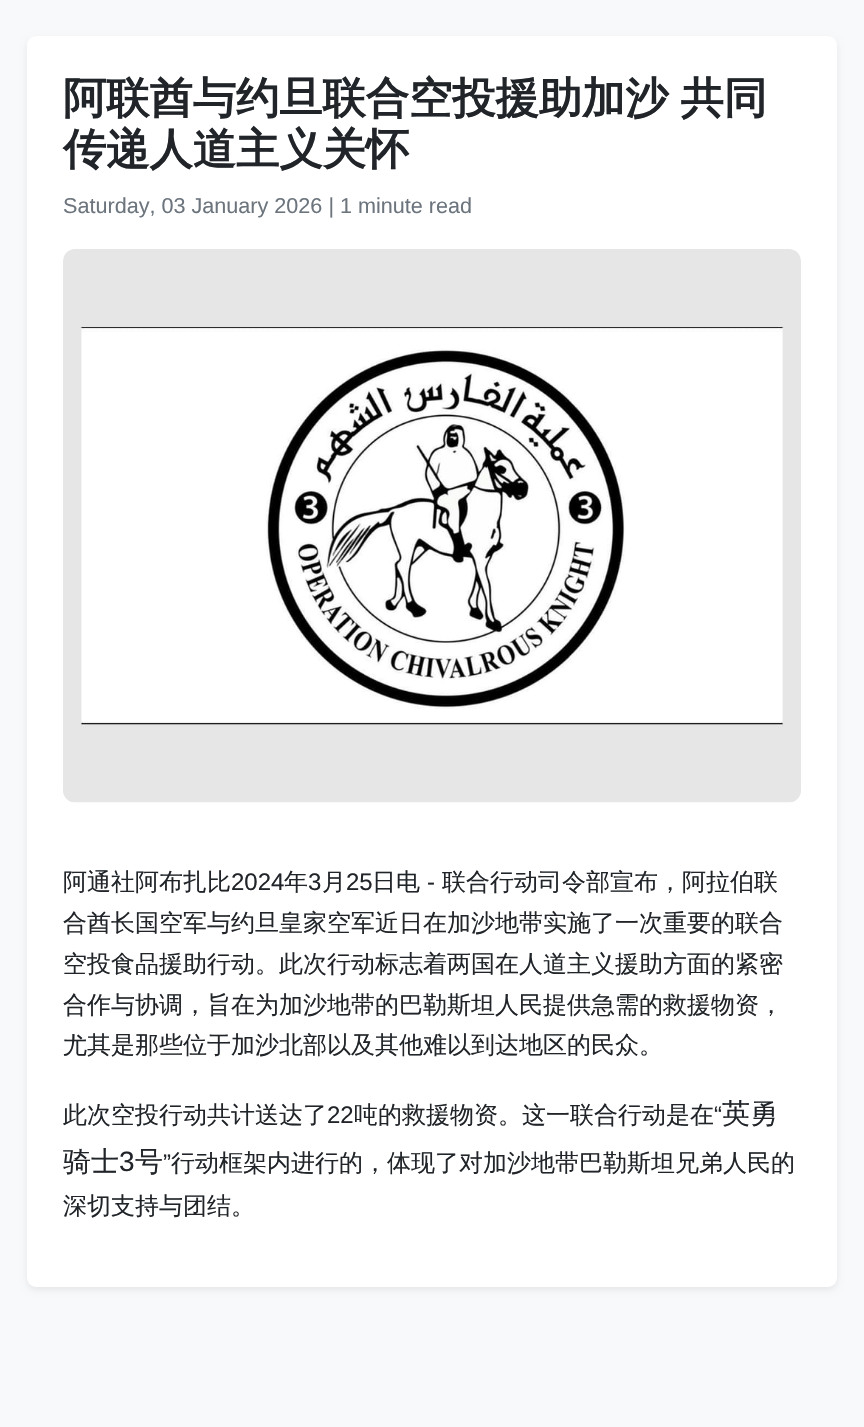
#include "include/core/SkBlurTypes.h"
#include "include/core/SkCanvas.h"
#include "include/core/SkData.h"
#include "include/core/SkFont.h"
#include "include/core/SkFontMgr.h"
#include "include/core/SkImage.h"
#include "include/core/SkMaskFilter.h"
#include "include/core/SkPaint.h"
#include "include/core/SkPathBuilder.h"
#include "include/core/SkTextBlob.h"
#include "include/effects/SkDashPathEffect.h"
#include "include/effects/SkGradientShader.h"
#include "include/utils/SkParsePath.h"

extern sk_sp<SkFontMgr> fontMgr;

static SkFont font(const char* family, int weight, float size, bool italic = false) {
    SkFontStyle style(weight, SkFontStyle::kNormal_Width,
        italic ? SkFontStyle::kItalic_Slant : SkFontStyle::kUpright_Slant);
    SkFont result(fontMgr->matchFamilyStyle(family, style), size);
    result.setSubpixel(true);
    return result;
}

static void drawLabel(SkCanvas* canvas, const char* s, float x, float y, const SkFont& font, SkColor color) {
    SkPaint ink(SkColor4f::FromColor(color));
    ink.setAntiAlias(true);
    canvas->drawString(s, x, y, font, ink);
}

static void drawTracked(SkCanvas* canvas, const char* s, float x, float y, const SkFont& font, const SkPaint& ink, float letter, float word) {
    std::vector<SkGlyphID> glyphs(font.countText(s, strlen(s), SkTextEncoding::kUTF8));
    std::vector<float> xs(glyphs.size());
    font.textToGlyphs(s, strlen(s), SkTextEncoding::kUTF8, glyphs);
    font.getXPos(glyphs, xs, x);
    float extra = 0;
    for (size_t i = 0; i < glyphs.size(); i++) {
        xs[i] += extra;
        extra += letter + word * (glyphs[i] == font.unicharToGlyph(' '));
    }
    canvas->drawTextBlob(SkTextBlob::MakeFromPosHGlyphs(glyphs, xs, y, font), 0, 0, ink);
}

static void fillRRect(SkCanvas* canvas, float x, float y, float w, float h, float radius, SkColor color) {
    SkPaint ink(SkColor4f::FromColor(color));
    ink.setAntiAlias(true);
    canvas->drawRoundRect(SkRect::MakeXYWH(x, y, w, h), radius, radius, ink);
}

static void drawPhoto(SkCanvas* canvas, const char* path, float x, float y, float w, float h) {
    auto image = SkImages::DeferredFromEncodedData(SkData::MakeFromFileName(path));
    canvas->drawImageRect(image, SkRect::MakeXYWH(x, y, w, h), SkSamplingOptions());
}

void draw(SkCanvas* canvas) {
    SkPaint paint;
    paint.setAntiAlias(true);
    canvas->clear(0xFFF8F9FA);
    paint.setColor(0x12000000);
    paint.setMaskFilter(SkMaskFilter::MakeBlur(kNormal_SkBlurStyle, 3));
    canvas->drawRoundRect(SkRect::MakeXYWH(27, 39, 810, 1251), 9, 9, paint);
    paint.setMaskFilter(nullptr);
    fillRRect(canvas, 27, 36, 810, 1251, 9, 0xFFFFFFFF);
    SkFont font1 = font("WenQuanYi Zen Hei", 700, 43.25f);
    paint.setColor(0xFF212529);
    drawTracked(canvas, "阿联酋与约旦联合空投援助加沙 共同", 63, 113, font1, paint, 0, -1);
    drawLabel(canvas, "传递人道主义关怀", 63, 164, font1, 0xFF212529);
    SkFont font2 = font("Liberation Sans", 400, 21.6f);
    drawLabel(canvas, "Saturday, 03 January 2026 | 1 minute read", 63, 213, font2, 0xFF6C757D);
    drawPhoto(canvas, "assets/img1.png", 63, 249, 738, 554);
    SkFont font3 = font("WenQuanYi Zen Hei", 500, 24);
    drawLabel(canvas, "阿通社阿布扎比", 63, 890, font3, 0xFF212529);
    SkFont font4 = font("Liberation Sans", 400, 24);
    drawLabel(canvas, "2024", 231, 890, font4, 0xFF212529);
    drawLabel(canvas, "年", 284, 890, font3, 0xFF212529);
    drawLabel(canvas, "3", 308, 890, font4, 0xFF212529);
    drawLabel(canvas, "月", 322, 890, font3, 0xFF212529);
    drawLabel(canvas, "25", 346, 890, font4, 0xFF212529);
    drawLabel(canvas, "日电", 372, 890, font3, 0xFF212529);
    drawLabel(canvas, "-", 427, 890, font4, 0xFF212529);
    drawLabel(canvas, "联合行动司令部宣布，阿拉伯联", 442, 890, font3, 0xFF212529);
    drawLabel(canvas, "合酋长国空军与约旦皇家空军近日在加沙地带实施了一次重要的联合", 63, 931, font3, 0xFF212529);
    drawLabel(canvas, "空投食品援助行动。此次行动标志着两国在人道主义援助方面的紧密", 63, 972, font3, 0xFF212529);
    drawLabel(canvas, "合作与协调，旨在为加沙地带的巴勒斯坦人民提供急需的救援物资，", 63, 1013, font3, 0xFF212529);
    drawLabel(canvas, "尤其是那些位于加沙北部以及其他难以到达地区的民众。", 63, 1053, font3, 0xFF212529);
    drawLabel(canvas, "此次空投行动共计送达了", 63, 1123, font3, 0xFF212529);
    drawLabel(canvas, "22", 327, 1123, font4, 0xFF212529);
    drawLabel(canvas, "吨的救援物资。这一联合行动是在", 354, 1123, font3, 0xFF212529);
    drawLabel(canvas, "“", 714, 1123, font4, 0xFF212529);
    SkFont font5 = font("WenQuanYi Zen Hei", 500, 28);
    drawLabel(canvas, "英勇", 722, 1123, font5, 0xFF212529);
    drawLabel(canvas, "骑士", 63, 1171, font5, 0xFF212529);
    SkFont font6 = font("Liberation Sans", 400, 28);
    drawLabel(canvas, "3", 119, 1171, font6, 0xFF212529);
    drawLabel(canvas, "号", 135, 1171, font5, 0xFF212529);
    drawLabel(canvas, "”", 163, 1171, font4, 0xFF212529);
    drawLabel(canvas, "行动框架内进行的，体现了对加沙地带巴勒斯坦兄弟人民的", 171, 1171, font3, 0xFF212529);
    drawLabel(canvas, "深切支持与团结。", 63, 1214, font3, 0xFF212529);
}
